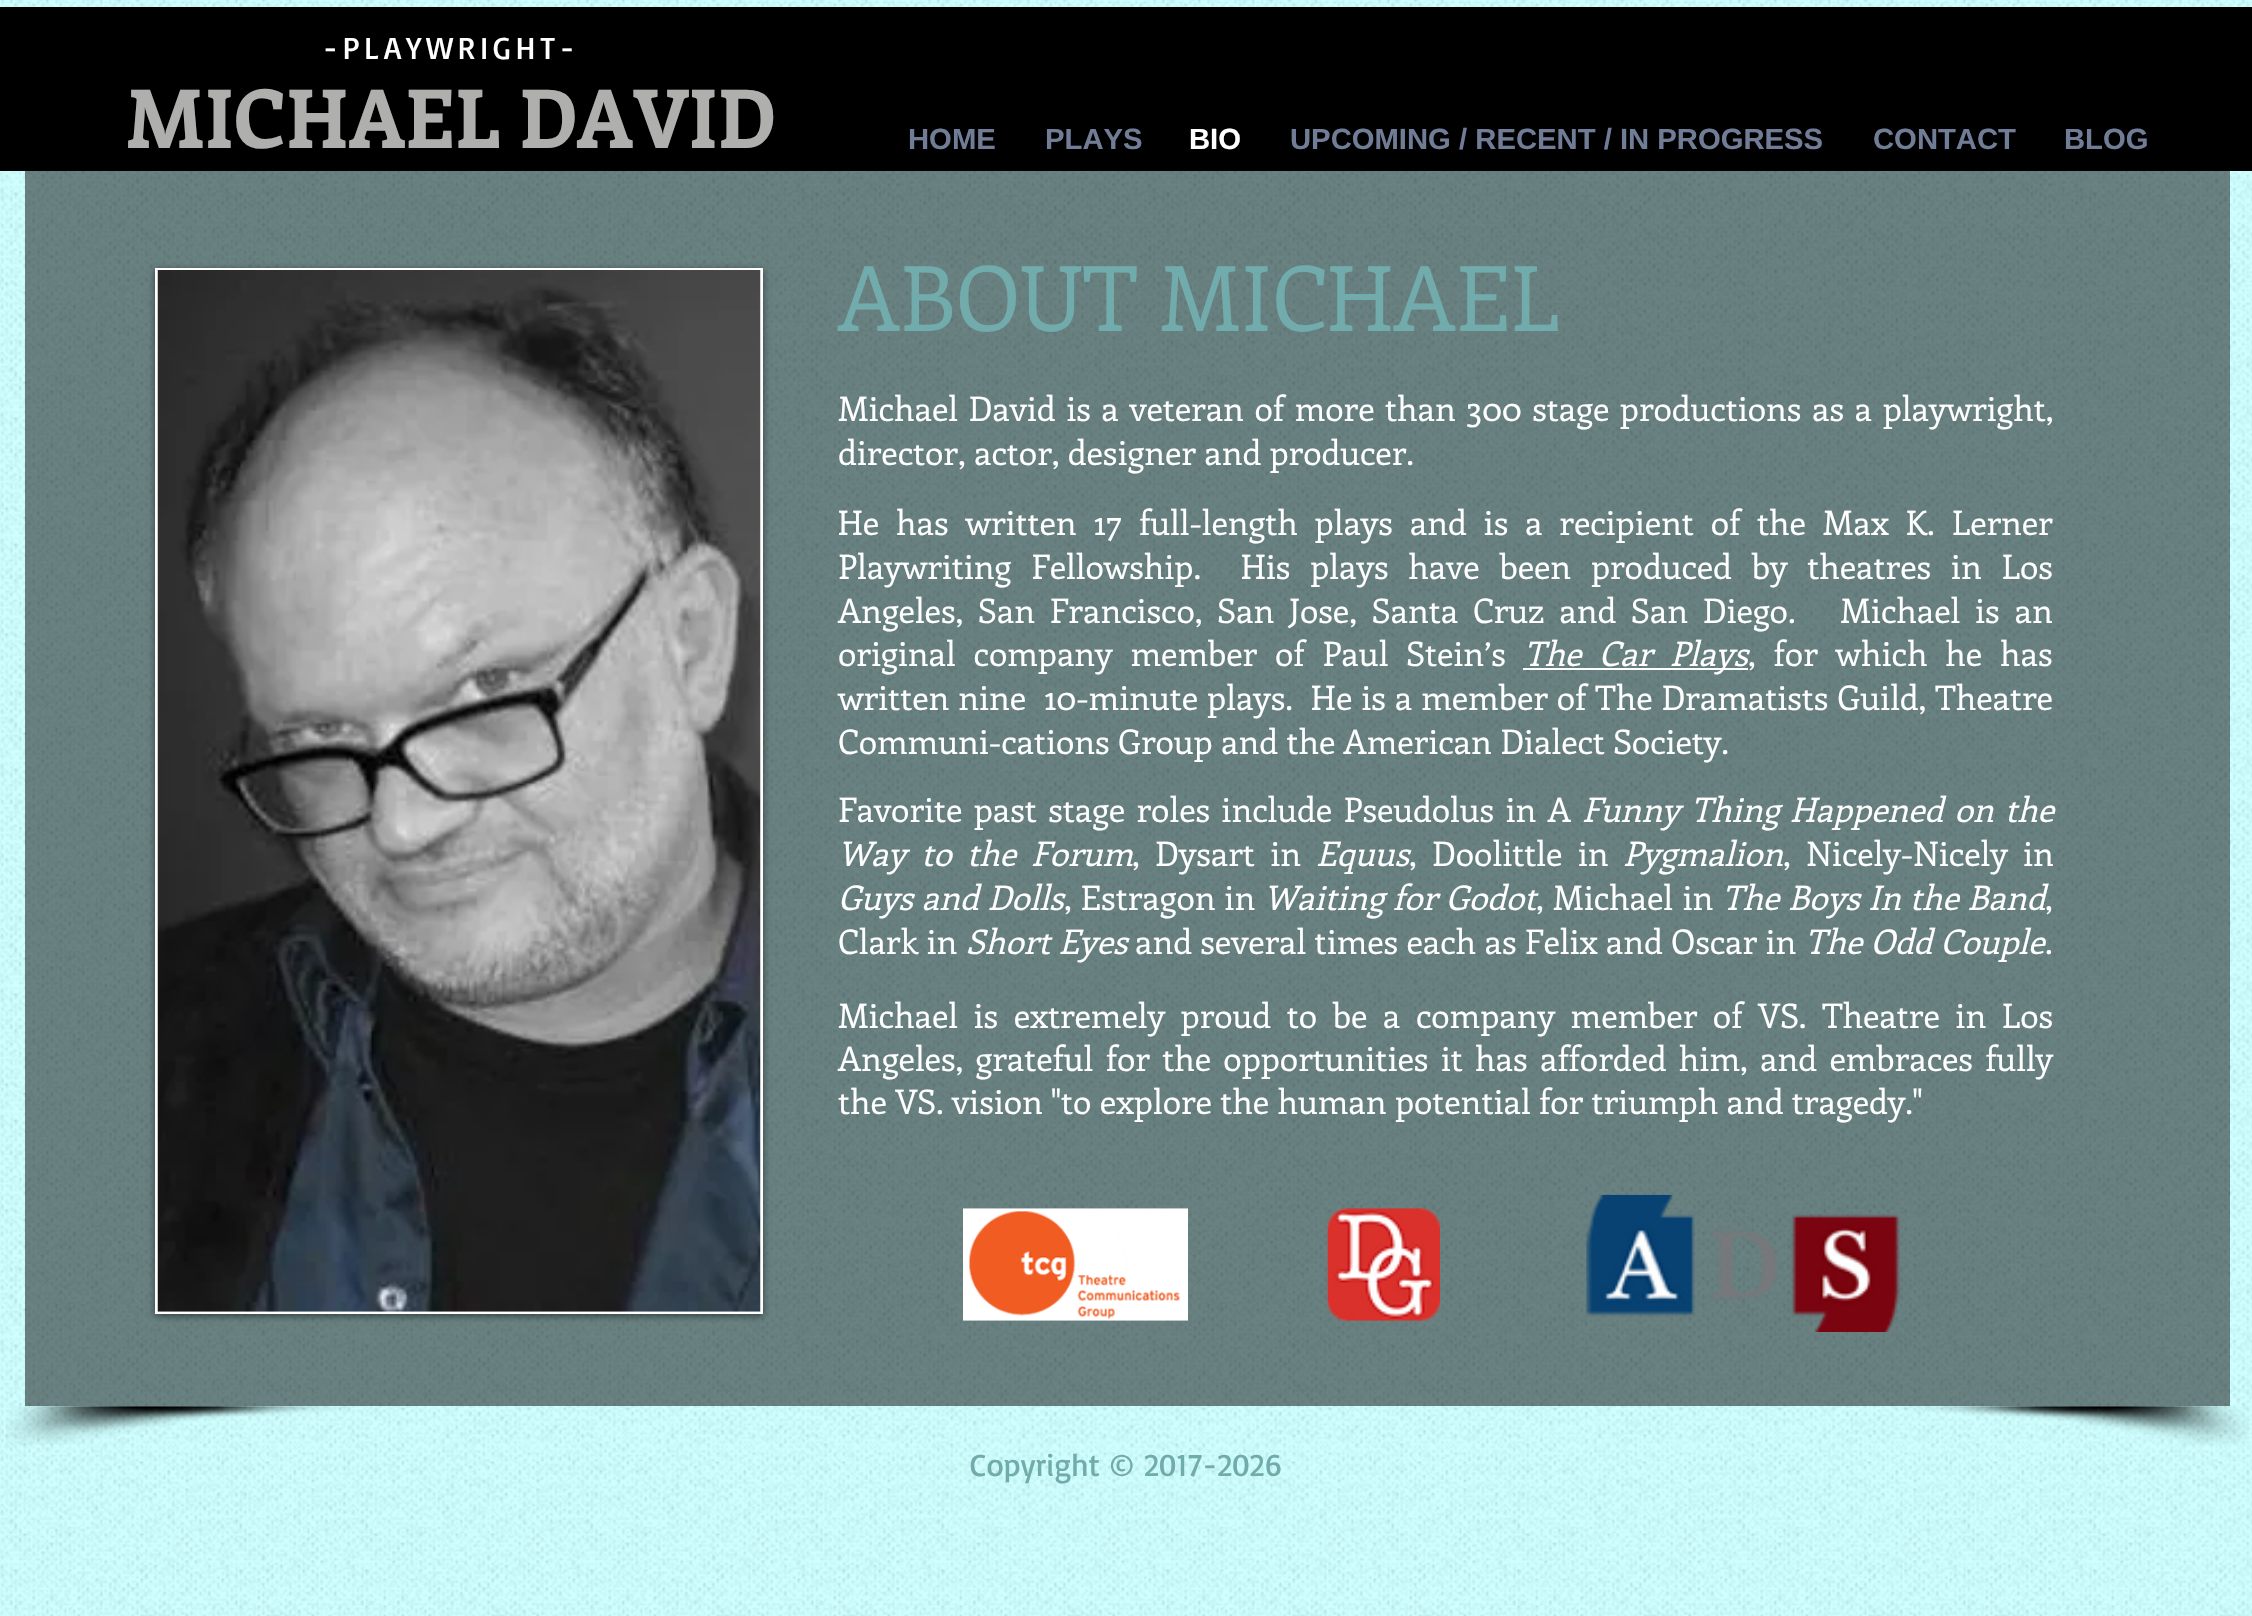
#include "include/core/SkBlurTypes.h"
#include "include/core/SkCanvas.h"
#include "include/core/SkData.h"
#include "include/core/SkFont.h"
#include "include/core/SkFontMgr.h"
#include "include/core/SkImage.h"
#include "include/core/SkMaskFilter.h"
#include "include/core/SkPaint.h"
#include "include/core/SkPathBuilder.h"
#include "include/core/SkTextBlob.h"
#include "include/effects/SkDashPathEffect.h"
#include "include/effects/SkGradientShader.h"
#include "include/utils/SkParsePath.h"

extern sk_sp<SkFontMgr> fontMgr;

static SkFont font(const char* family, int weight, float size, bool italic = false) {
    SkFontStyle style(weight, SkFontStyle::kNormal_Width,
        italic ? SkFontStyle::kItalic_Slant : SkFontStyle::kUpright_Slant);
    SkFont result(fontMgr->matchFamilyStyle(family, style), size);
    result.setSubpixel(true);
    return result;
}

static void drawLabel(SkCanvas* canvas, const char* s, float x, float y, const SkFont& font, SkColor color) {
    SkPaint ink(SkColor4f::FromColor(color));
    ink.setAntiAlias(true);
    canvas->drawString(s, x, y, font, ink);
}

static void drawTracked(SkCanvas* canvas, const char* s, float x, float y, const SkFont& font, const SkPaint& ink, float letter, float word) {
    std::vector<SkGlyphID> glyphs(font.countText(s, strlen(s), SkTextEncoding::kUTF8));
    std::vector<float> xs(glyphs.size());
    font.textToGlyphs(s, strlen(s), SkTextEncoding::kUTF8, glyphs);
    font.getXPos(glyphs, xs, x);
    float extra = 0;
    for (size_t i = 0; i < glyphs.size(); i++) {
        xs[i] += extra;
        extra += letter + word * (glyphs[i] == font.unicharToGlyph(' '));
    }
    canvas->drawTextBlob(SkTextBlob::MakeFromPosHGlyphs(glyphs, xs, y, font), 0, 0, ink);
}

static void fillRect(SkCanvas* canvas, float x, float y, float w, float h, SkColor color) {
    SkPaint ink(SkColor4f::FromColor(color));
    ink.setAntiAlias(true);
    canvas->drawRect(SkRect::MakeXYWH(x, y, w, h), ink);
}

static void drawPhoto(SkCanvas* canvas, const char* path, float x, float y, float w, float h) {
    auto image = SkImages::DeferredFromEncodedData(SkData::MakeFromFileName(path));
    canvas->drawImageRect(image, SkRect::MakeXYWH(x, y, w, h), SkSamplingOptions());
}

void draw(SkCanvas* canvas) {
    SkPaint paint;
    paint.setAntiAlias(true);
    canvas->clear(0xFFCFFFFF);
    drawPhoto(canvas, "assets/img1.png", 0, 0, 2252, 1616);
    fillRect(canvas, 0, 7, 2252, 164, 0xFF000000);
    SkFont font1 = font("Basic", 400, 31.5f);
    paint.setColor(0xFFFFFFFF);
    drawTracked(canvas, "-PLAYWRIGHT-", 323, 59, font1, paint, 4.75f, 0);
    SkFont font2 = font("Enriqueta", 700, 81);
    drawLabel(canvas, "MICHAEL DAVID", 126, 148, font2, 0xFFAFAFAE);
    SkFont font3 = font("Liberation Sans", 700, 29.25f);
    drawLabel(canvas, "HOME", 908, 149, font3, 0xFF717D97);
    drawLabel(canvas, "PLAYS", 1045, 149, font3, 0xFF717D97);
    drawLabel(canvas, "BIO", 1189, 149, font3, 0xFFFFFFFF);
    drawLabel(canvas, "UPCOMING / RECENT / IN PROGRESS", 1290, 149, font3, 0xFF717D97);
    drawLabel(canvas, "CONTACT", 1873, 149, font3, 0xFF717D97);
    drawLabel(canvas, "BLOG", 2064, 149, font3, 0xFF717D97);
    fillRect(canvas, 25, 171, 2205, 1235, 0x7D000000);
    drawPhoto(canvas, "assets/img2.png", 6, 1406, 345, 39);
    drawPhoto(canvas, "assets/img3.png", 1904, 1406, 345, 40);
    paint.setColor(0x80000000);
    paint.setMaskFilter(SkMaskFilter::MakeBlur(kNormal_SkBlurStyle, 3.5f));
    canvas->drawRect(SkRect::MakeXYWH(155, 270, 608, 1046), paint);
    paint.setMaskFilter(nullptr);
    fillRect(canvas, 155, 268, 608, 1046, 0xFFFFFFFF);
    drawPhoto(canvas, "assets/img4.png", 157, 270, 604, 1042);
    SkFont font4 = font("Enriqueta", 400, 90);
    drawLabel(canvas, "ABOUT MICHAEL", 838, 331, font4, 0xFF72ABAB);
    SkFont font5 = font("Enriqueta", 400, 33.75f);
    paint.setColor(0xFFFFFFFF);
    drawTracked(canvas, "Michael David is a veteran of more than 300 stage productions as a playwright,", 838, 421, font5, paint, 0, 2.25f);
    drawLabel(canvas, "director, actor, designer and producer.", 838, 465, font5, 0xFFFFFFFF);
    drawTracked(canvas, "He has written 17 full-length plays and is a recipient of the Max K. Lerner", 838, 535, font5, paint, 0, 8.5f);
    drawTracked(canvas, "Playwriting Fellowship.  His plays have been produced by theatres in Los", 838, 579, font5, paint, 0, 11.5f);
    drawTracked(canvas, "Angeles, San Francisco, San Jose, Santa Cruz and San Diego.   Michael is an", 838, 623, font5, paint, 0, 6.5f);
    drawTracked(canvas, "original company member of Paul Stein’s", 838, 666, font5, paint, 0, 9.5f);
    fillRect(canvas, 1523, 668, 225, 2, 0xFFFFFFFF);
    SkFont font6 = font("Enriqueta", 400, 33.75f, true);
    drawTracked(canvas, "The Car Plays", 1524, 666, font6, paint, 0, 9.5f);
    drawTracked(canvas, ", for which he has", 1748, 666, font5, paint, 0, 9.5f);
    drawTracked(canvas, "written nine  10-minute plays.  He is a member of The Dramatists Guild, Theatre", 838, 710, font5, paint, 0, 0.6f);
    drawLabel(canvas, "Communi-cations Group and the American Dialect Society.", 838, 754, font5, 0xFFFFFFFF);
    drawTracked(canvas, "Favorite past stage roles include Pseudolus in A", 838, 822, font5, paint, 0, 3);
    drawTracked(canvas, "Funny Thing Happened on the", 1582, 822, font6, paint, 0, 3);
    drawTracked(canvas, "Way to the Forum", 838, 866, font6, paint, 0, 7);
    drawTracked(canvas, ", Dysart in", 1132, 866, font5, paint, 0, 7);
    drawLabel(canvas, "Equus", 1316, 866, font6, 0xFFFFFFFF);
    drawTracked(canvas, ", Doolittle in", 1409, 866, font5, paint, 0, 7);
    drawLabel(canvas, "Pygmalion", 1623, 866, font6, 0xFFFFFFFF);
    drawTracked(canvas, ", Nicely-Nicely in", 1783, 866, font5, paint, 0, 7);
    drawTracked(canvas, "Guys and Dolls", 838, 910, font6, paint, 0, 0.5f);
    drawTracked(canvas, ", Estragon in", 1064, 910, font5, paint, 0, 0.5f);
    drawTracked(canvas, "Waiting for Godot", 1264, 910, font6, paint, 0, 0.5f);
    drawTracked(canvas, ", Michael in", 1536, 910, font5, paint, 0, 1);
    drawTracked(canvas, "The Boys In the Band", 1722, 910, font6, paint, 0, 0.5f);
    drawLabel(canvas, ",", 2045, 910, font5, 0xFFFFFFFF);
    drawLabel(canvas, "Clark in", 838, 954, font5, 0xFFFFFFFF);
    drawLabel(canvas, "Short Eyes", 966, 954, font6, 0xFFFFFFFF);
    drawLabel(canvas, "and several times each as Felix and Oscar in", 1135, 954, font5, 0xFFFFFFFF);
    drawLabel(canvas, "The Odd Couple", 1805, 954, font6, 0xFFFFFFFF);
    drawLabel(canvas, ".", 2045, 954, font5, 0xFFFFFFFF);
    drawTracked(canvas, "Michael is extremely proud to be a company member of VS. Theatre in Los", 838, 1028, font5, paint, 0, 7.25f);
    drawTracked(canvas, "Angeles, grateful for the opportunities it has afforded him, and embraces fully", 838, 1071, font5, paint, 0, 4);
    drawLabel(canvas, "the VS. vision \"to explore the human potential for triumph and tragedy.\"", 838, 1114, font5, 0xFFFFFFFF);
    drawPhoto(canvas, "assets/img5.png", 963, 1208, 225, 113);
    drawPhoto(canvas, "assets/img6.png", 1327, 1208, 113, 113);
    drawPhoto(canvas, "assets/img7.png", 1586, 1194, 314, 138);
    drawLabel(canvas, "Copyright © 2017-2026", 970, 1476, font1, 0xFF72ABAB);
}
